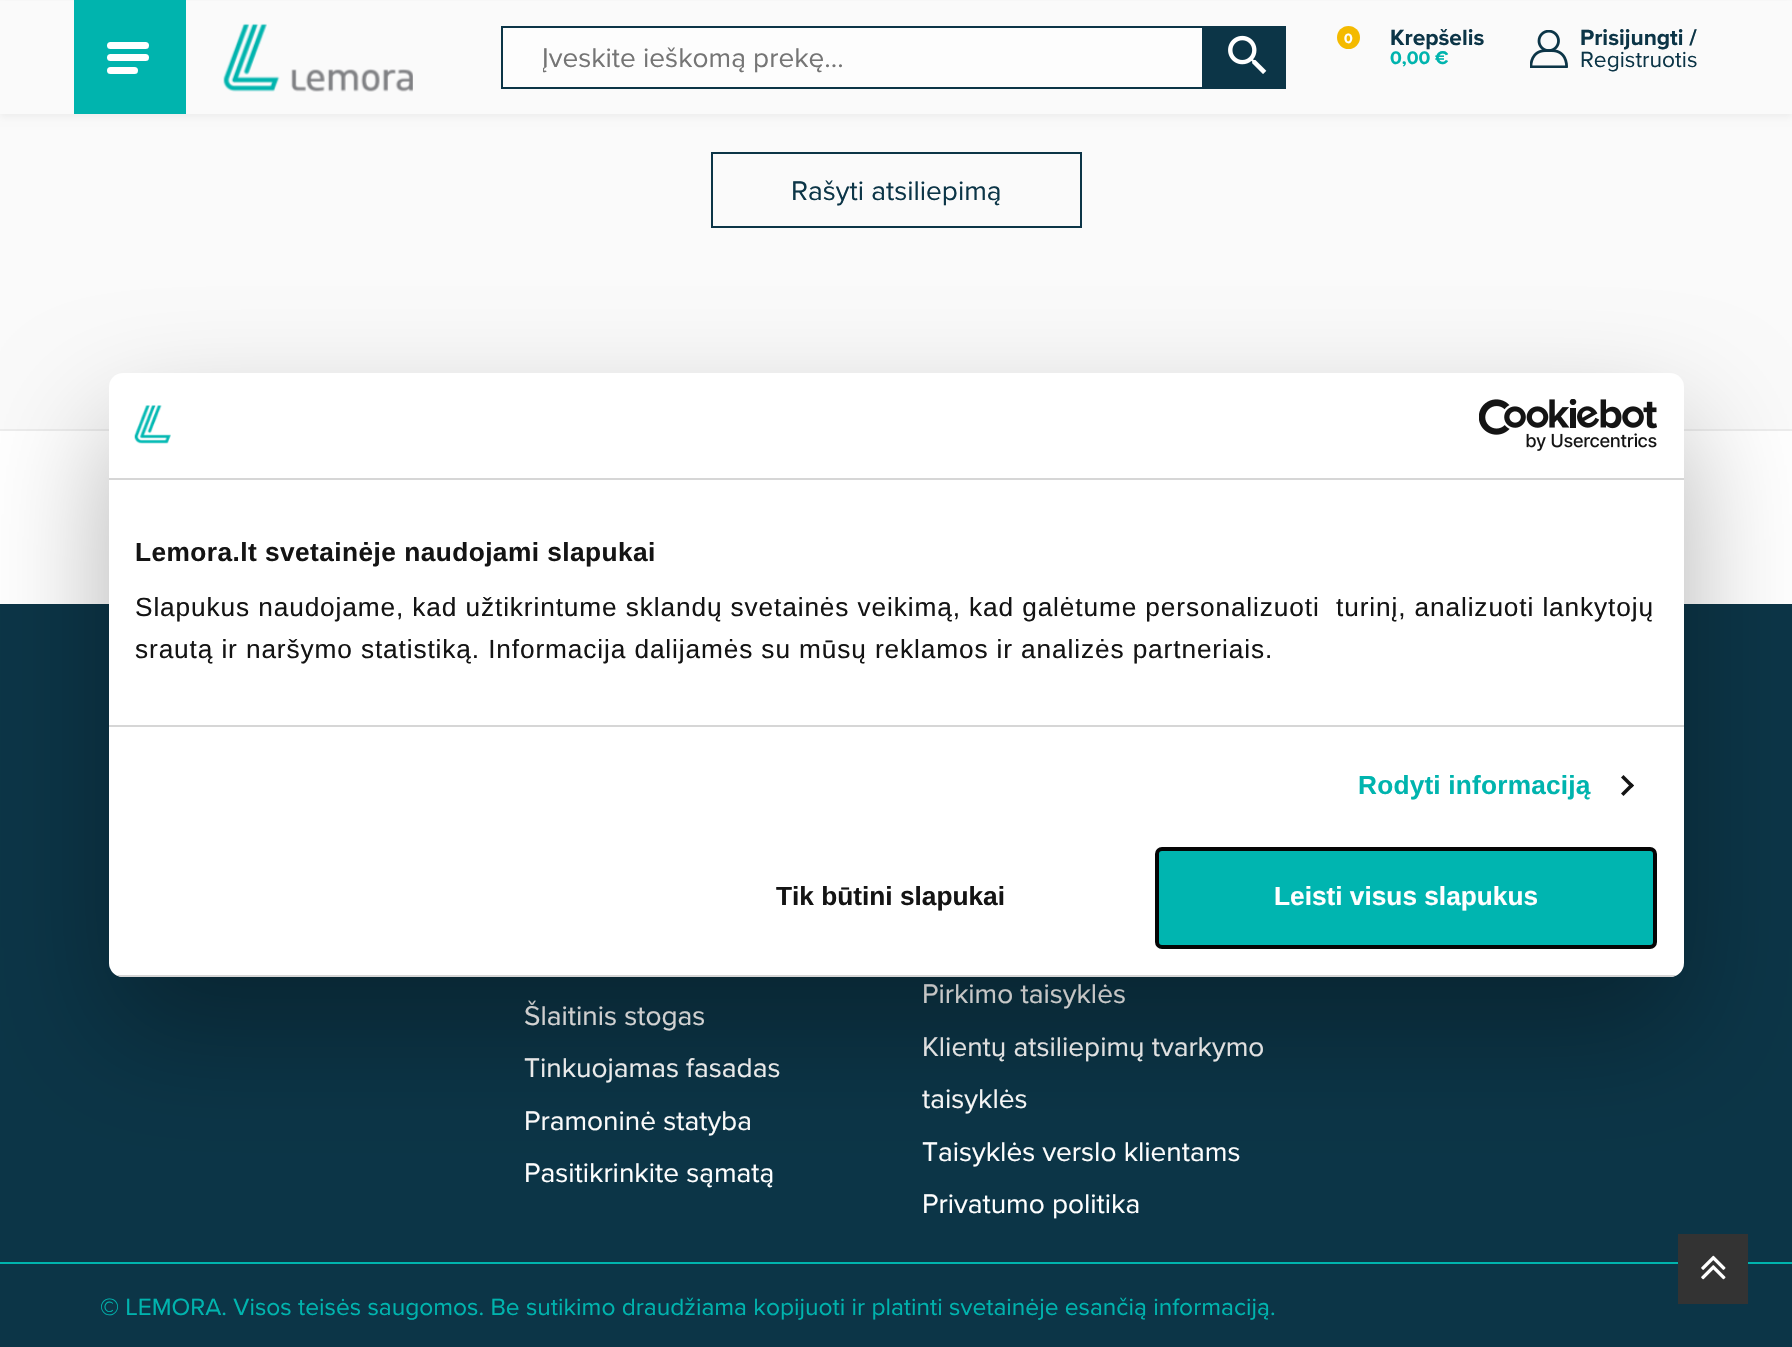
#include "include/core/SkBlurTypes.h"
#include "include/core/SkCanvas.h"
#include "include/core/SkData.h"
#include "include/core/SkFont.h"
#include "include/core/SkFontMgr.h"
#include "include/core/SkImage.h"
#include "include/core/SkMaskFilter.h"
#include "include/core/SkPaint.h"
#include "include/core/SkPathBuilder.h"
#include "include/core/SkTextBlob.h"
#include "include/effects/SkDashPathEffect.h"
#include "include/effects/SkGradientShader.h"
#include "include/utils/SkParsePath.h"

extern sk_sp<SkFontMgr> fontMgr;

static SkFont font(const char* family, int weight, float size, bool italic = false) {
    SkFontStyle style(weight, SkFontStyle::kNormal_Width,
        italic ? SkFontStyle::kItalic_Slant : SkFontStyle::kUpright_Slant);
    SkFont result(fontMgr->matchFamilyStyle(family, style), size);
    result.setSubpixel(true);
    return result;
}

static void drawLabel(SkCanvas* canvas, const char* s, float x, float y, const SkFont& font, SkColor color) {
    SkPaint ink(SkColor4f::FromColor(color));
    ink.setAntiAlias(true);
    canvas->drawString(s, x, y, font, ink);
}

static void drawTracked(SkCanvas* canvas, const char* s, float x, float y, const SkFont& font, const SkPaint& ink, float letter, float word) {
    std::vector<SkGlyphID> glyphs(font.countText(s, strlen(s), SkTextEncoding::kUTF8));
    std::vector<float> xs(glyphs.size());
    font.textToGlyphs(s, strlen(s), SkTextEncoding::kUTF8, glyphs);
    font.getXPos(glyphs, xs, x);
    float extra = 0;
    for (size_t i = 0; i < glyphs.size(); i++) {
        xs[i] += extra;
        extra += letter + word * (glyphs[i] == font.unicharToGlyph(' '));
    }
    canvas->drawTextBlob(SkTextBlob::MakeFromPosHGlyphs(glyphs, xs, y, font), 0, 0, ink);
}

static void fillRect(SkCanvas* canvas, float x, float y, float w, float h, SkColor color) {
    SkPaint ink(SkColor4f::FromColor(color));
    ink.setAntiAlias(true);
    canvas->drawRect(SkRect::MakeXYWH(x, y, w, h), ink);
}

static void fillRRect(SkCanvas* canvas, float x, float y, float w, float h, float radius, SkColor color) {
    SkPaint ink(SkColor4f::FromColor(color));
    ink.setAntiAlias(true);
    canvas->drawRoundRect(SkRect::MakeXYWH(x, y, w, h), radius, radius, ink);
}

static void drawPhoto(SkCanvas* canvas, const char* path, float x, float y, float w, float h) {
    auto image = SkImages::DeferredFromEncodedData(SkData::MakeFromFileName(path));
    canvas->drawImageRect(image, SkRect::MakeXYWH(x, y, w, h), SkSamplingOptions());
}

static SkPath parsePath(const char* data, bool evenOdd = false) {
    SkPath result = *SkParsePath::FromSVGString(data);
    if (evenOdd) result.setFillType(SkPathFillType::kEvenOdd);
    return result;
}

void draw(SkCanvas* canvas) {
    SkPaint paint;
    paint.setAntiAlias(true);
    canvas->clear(0xFFFAFAFA);
    paint.setColor(0x0D000000);
    paint.setMaskFilter(SkMaskFilter::MakeBlur(kNormal_SkBlurStyle, 3.5f));
    canvas->drawRect(SkRect::MakeXYWH(0, 4, 1792, 113), paint);
    paint.setMaskFilter(nullptr);
    fillRect(canvas, 0, 1, 1792, 113, 0xFFFAFAFA);
    fillRect(canvas, 74, 0, 112, 114, 0xFF00B4AE);
    fillRRect(canvas, 107, 42, 42, 7, 3.5f, 0xFFFFFFFF);
    fillRRect(canvas, 107, 54, 42, 7, 3.5f, 0xFFFFFFFF);
    fillRRect(canvas, 107, 67, 31, 7, 3.5f, 0xFFFFFFFF);
    drawPhoto(canvas, "assets/img1.png", 223, 23, 190, 69);
    fillRect(canvas, 503, 28, 699, 59, 0xFFFDFDFD);
    paint.setStroke(true);
    paint.setStrokeWidth(2);
    paint.setColor(0xFF0C3547);
    canvas->drawRect(SkRect::MakeXYWH(502, 27, 783, 61), paint);
    fillRect(canvas, 1202, 28, 82, 59, 0xFF0C3547);
    drawPhoto(canvas, "assets/img2.png", 1228, 35, 39, 39);
    canvas->save();
    canvas->clipRect(SkRect::MakeXYWH(543, 39, 645, 40));
    SkFont font1 = font("Proxima Nova", 400, 28);
    drawLabel(canvas, "Įveskite ieškomą prekę...", 542, 67, font1, 0xFF757575);
    canvas->restore();
    paint.setStroke(false);
    paint.setColor(0xFFF4BA00);
    canvas->drawCircle(1348.5f, 37.5f, 11.5f, paint);
    SkFont font2 = font("Proxima Nova", 700, 14);
    drawLabel(canvas, "0", 1344, 43, font2, 0xFFFFFFFF);
    SkFont font3 = font("Proxima Nova", 700, 22.75f);
    drawLabel(canvas, "Krepšelis", 1390, 45, font3, 0xFF0C3547);
    SkFont font4 = font("Proxima Nova", 700, 19);
    drawLabel(canvas, "0,00 €", 1390, 64, font4, 0xFF00B4AE);
    drawPhoto(canvas, "assets/img3.png", 1530, 30, 38, 38);
    drawLabel(canvas, "Prisijungti /", 1580, 45, font3, 0xFF0C3547);
    SkFont font5 = font("Proxima Nova", 400, 22.75f);
    drawLabel(canvas, "Registruotis", 1580, 67, font5, 0xFF0C3547);
    paint.setStroke(true);
    paint.setColor(0xFF0C3547);
    canvas->drawRect(SkRect::MakeXYWH(712, 153, 369, 74), paint);
    drawLabel(canvas, "Rašyti atsiliepimą", 791, 200, font1, 0xFF0C3547);
    fillRect(canvas, 0, 429, 1792, 2, 0xFFEDEDED);
    fillRect(canvas, 0, 431, 1792, 173, 0xFFFFFFFF);
    fillRect(canvas, 0, 604, 1792, 743, 0xFF0C3547);
    drawLabel(canvas, "Šlaitinis stogas", 524, 1025, font1, 0xFFFFFFFF);
    drawLabel(canvas, "Tinkuojamas fasadas", 524, 1077, font1, 0xFFFFFFFF);
    drawLabel(canvas, "Pramoninė statyba", 524, 1130, font1, 0xFFFFFFFF);
    drawLabel(canvas, "Pasitikrinkite sąmatą", 524, 1182, font1, 0xFFFFFFFF);
    drawLabel(canvas, "Pirkimo taisyklės", 922, 1003, font1, 0xFFFFFFFF);
    drawLabel(canvas, "Klientų atsiliepimų tvarkymo", 922, 1056, font1, 0xFFFFFFFF);
    drawLabel(canvas, "taisyklės", 922, 1108, font1, 0xFFFFFFFF);
    drawLabel(canvas, "Taisyklės verslo klientams", 922, 1161, font1, 0xFFFFFFFF);
    drawLabel(canvas, "Privatumo politika", 922, 1213, font1, 0xFFFFFFFF);
    fillRect(canvas, 0, 1262, 1792, 2, 0xFF00B4AE);
    SkFont font6 = font("Proxima Nova", 400, 24.5f);
    drawLabel(canvas, "© LEMORA. Visos teisės saugomos. Be sutikimo draudžiama kopijuoti ir platinti svetainėje esančią informaciją.", 100, 1315, font6, 0xFF00B4AE);
    fillRect(canvas, 1678, 1234, 70, 70, 0xFF333333);
    drawPhoto(canvas, "assets/img4.png", 1701, 1255, 25, 25);
    paint.setStroke(false);
    paint.setColor(0x4D000000);
    paint.setMaskFilter(SkMaskFilter::MakeBlur(kNormal_SkBlurStyle, 59.5f));
    canvas->drawRoundRect(SkRect::MakeXYWH(109, 429, 1575, 604), 14, 14, paint);
    paint.setMaskFilter(nullptr);
    fillRRect(canvas, 109, 373, 1575, 604, 14, 0xFFFFFFFF);
    fillRect(canvas, 109, 478, 1575, 2, 0xFFD6D6D6);
    drawPhoto(canvas, "assets/img5.png", 134, 405, 37, 39);
    drawPhoto(canvas, "assets/img6.png", 1479, 399, 178, 52);
    fillRect(canvas, 109, 725, 1575, 2, 0xFFD6D6D6);
    SkFont font7 = font("Liberation Sans", 700, 26.25f);
    paint.setColor(0xFF141414);
    drawTracked(canvas, "Lemora.lt svetainėje naudojami slapukai", 135, 561, font7, paint, 0.45f, 0);
    SkFont font8 = font("Liberation Sans", 400, 26.25f);
    drawTracked(canvas, "Slapukus naudojame, kad užtikrintume sklandų svetainės veikimą, kad galėtume personalizuoti  turinį, analizuoti lankytojų", 135, 616, font8, paint, 0.88f, 0);
    drawTracked(canvas, "srautą ir naršymo statistiką. Informacija dalijamės su mūsų reklamos ir analizės partneriais.", 135, 658, font8, paint, 0.88f, 0);
    paint.setColor(0xFF00B4AE);
    drawTracked(canvas, "Rodyti informaciją", 1358, 794, font7, paint, 0.2f, 0);
    paint.setColor(0xFF141414);
    canvas->drawPath(parsePath("M1623.5 775L1634 785.5L1631.5 788L1621 777.5Z"), paint);
    canvas->drawPath(parsePath("M1631.5 783L1634 785.5L1623.5 796L1621 793.5Z"), paint);
    canvas->save();
    canvas->clipPath(parsePath("M123 373H1670C1677.5 373 1684 379.5 1684 387V963C1684 970.5 1677.5 977 1670 977H123C115.5 977 109 970.5 109 963V387C109 379.5 115.5 373 123 373Z"), true);
    fillRect(canvas, 109, 975, 1575, 2, 0xFFD6D6D6);
    canvas->restore();
    drawLabel(canvas, "Tik būtini slapukai", 776, 905, font7, 0xFF141414);
    paint.setColor(0xFF00B5B0);
    canvas->drawRoundRect(SkRect::MakeXYWH(1157, 849, 498, 98), 5, 5, paint);
    paint.setStroke(true);
    paint.setStrokeWidth(4);
    paint.setColor(0xFF050505);
    canvas->drawRoundRect(SkRect::MakeXYWH(1157, 849, 498, 98), 5, 5, paint);
    drawLabel(canvas, "Leisti visus slapukus", 1274, 905, font7, 0xFFFFFFFF);
}
